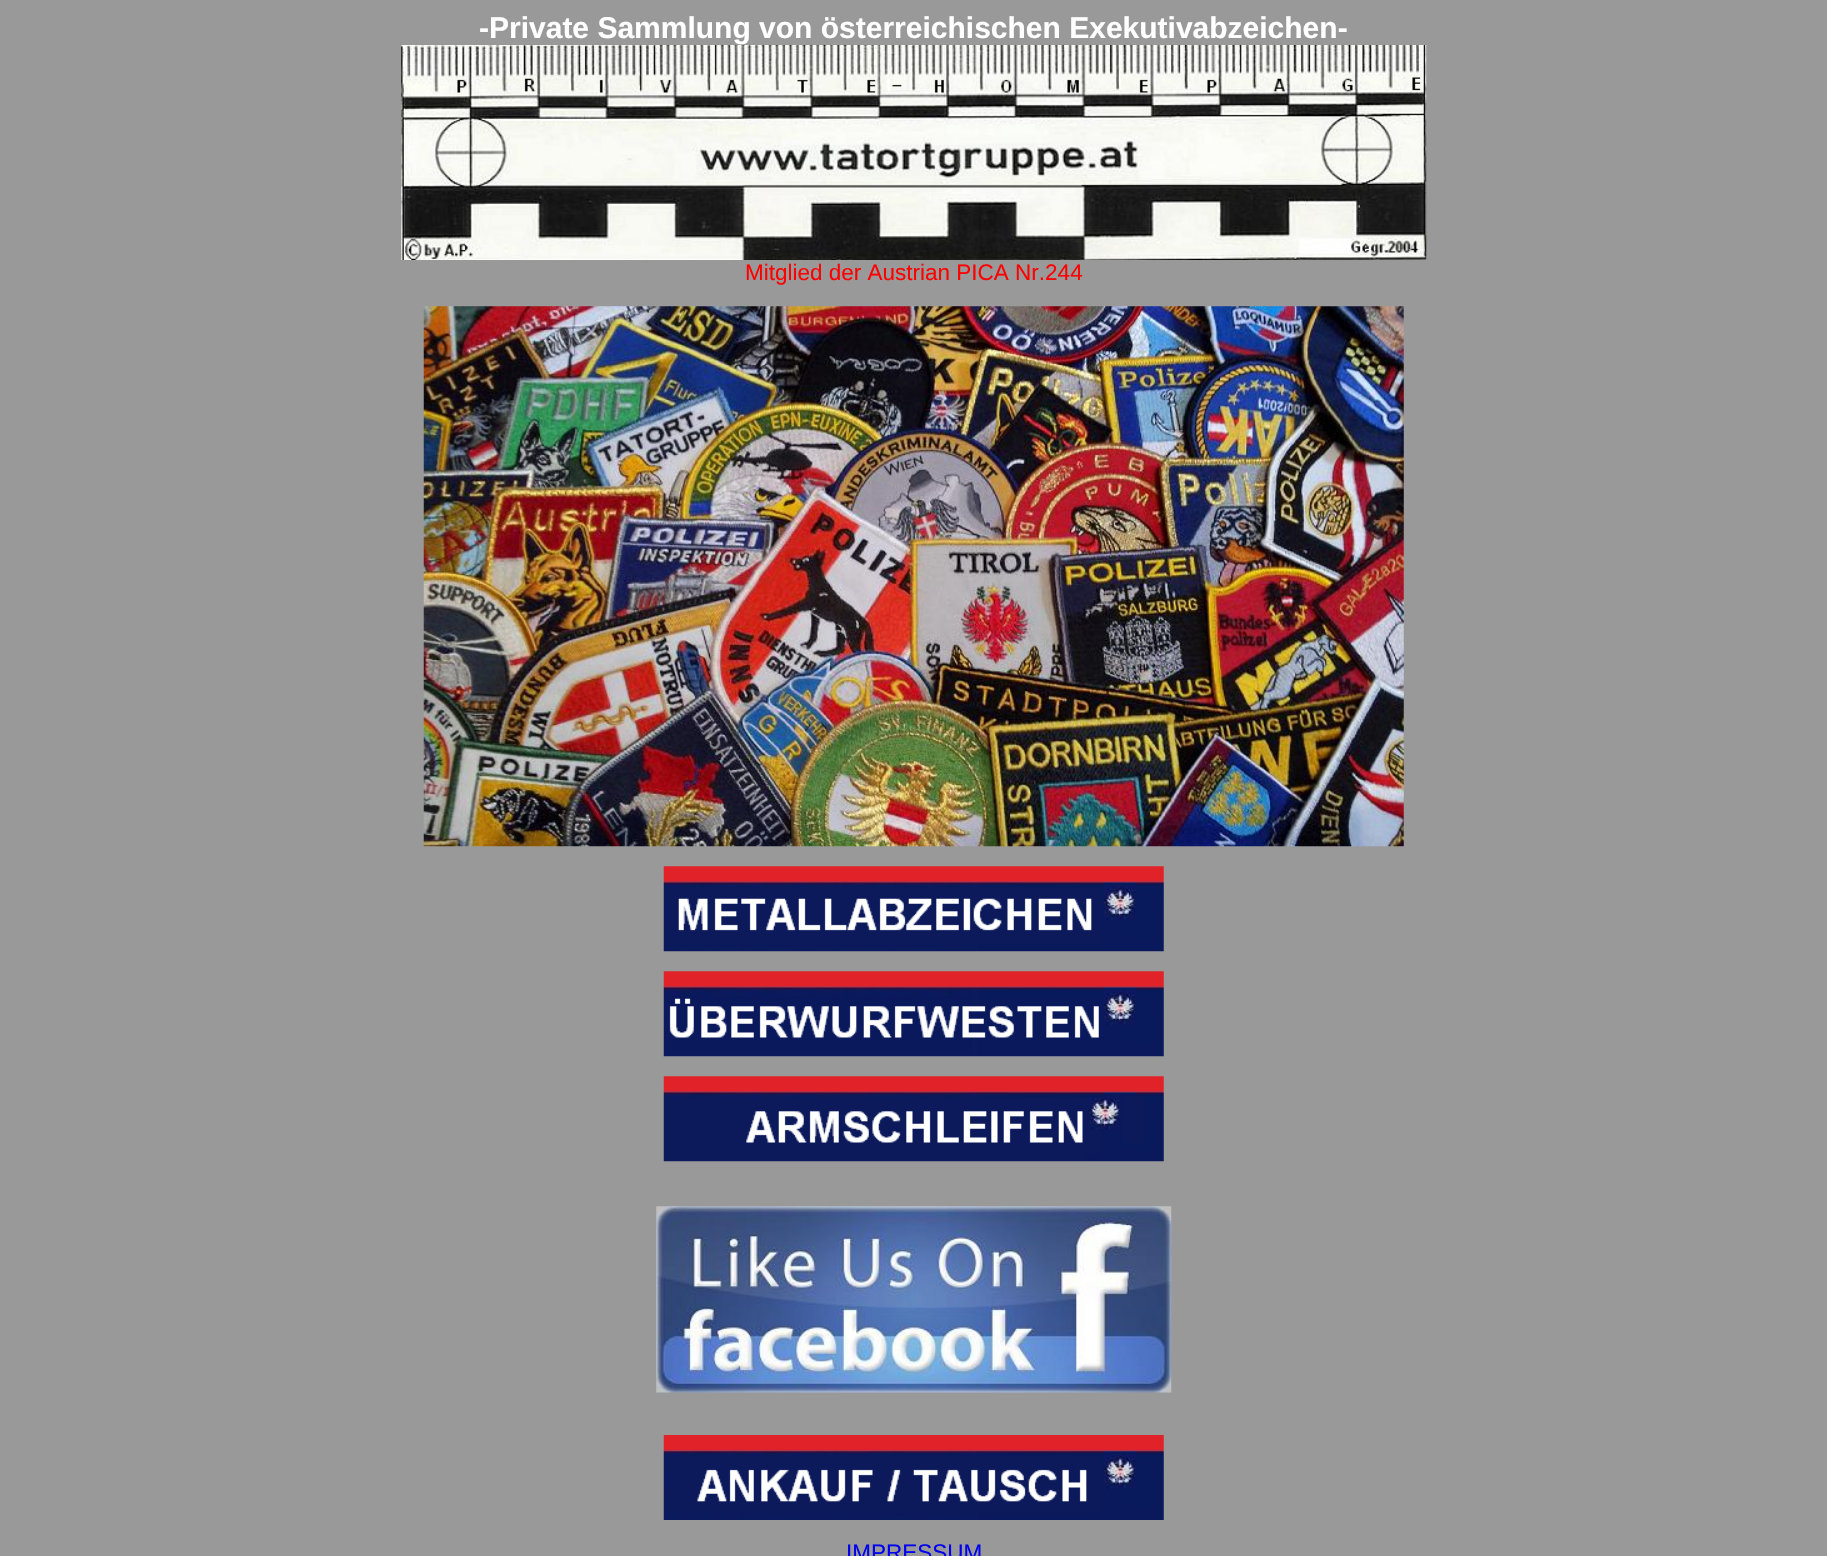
#include "include/core/SkBlurTypes.h"
#include "include/core/SkCanvas.h"
#include "include/core/SkData.h"
#include "include/core/SkFont.h"
#include "include/core/SkFontMgr.h"
#include "include/core/SkImage.h"
#include "include/core/SkMaskFilter.h"
#include "include/core/SkPaint.h"
#include "include/core/SkPathBuilder.h"
#include "include/core/SkTextBlob.h"
#include "include/effects/SkDashPathEffect.h"
#include "include/effects/SkGradientShader.h"
#include "include/utils/SkParsePath.h"

extern sk_sp<SkFontMgr> fontMgr;

static SkFont font(const char* family, int weight, float size, bool italic = false) {
    SkFontStyle style(weight, SkFontStyle::kNormal_Width,
        italic ? SkFontStyle::kItalic_Slant : SkFontStyle::kUpright_Slant);
    SkFont result(fontMgr->matchFamilyStyle(family, style), size);
    result.setSubpixel(true);
    return result;
}

static void drawLabel(SkCanvas* canvas, const char* s, float x, float y, const SkFont& font, SkColor color) {
    SkPaint ink(SkColor4f::FromColor(color));
    ink.setAntiAlias(true);
    canvas->drawString(s, x, y, font, ink);
}

static void drawPhoto(SkCanvas* canvas, const char* path, float x, float y, float w, float h) {
    auto image = SkImages::DeferredFromEncodedData(SkData::MakeFromFileName(path));
    canvas->drawImageRect(image, SkRect::MakeXYWH(x, y, w, h), SkSamplingOptions());
}

void draw(SkCanvas* canvas) {
    SkPaint paint;
    paint.setAntiAlias(true);
    canvas->clear(0xFF999999);
    SkFont font1 = font("Liberation Sans", 700, 30);
    drawLabel(canvas, "-Private Sammlung von österreichischen Exekutivabzeichen-", 479, 38, font1, 0xFFFFFFFF);
    drawPhoto(canvas, "assets/img1.png", 401, 45, 1026, 215);
    SkFont font2 = font("Liberation Sans", 400, 22.5f);
    drawLabel(canvas, "Mitglied der Austrian PICA Nr.244", 745, 280, font2, 0xFFFF0000);
    drawPhoto(canvas, "assets/img2.png", 423, 306, 981, 541);
    drawPhoto(canvas, "assets/img3.png", 663, 866, 501, 86);
    drawPhoto(canvas, "assets/img4.png", 663, 971, 501, 86);
    drawPhoto(canvas, "assets/img5.png", 663, 1076, 501, 86);
    drawPhoto(canvas, "assets/img6.png", 656, 1206, 516, 187);
    drawPhoto(canvas, "assets/img7.png", 663, 1435, 501, 85);
    drawLabel(canvas, "IMPRESSUM", 846, 1560, font2, 0xFF0000EE);
}
